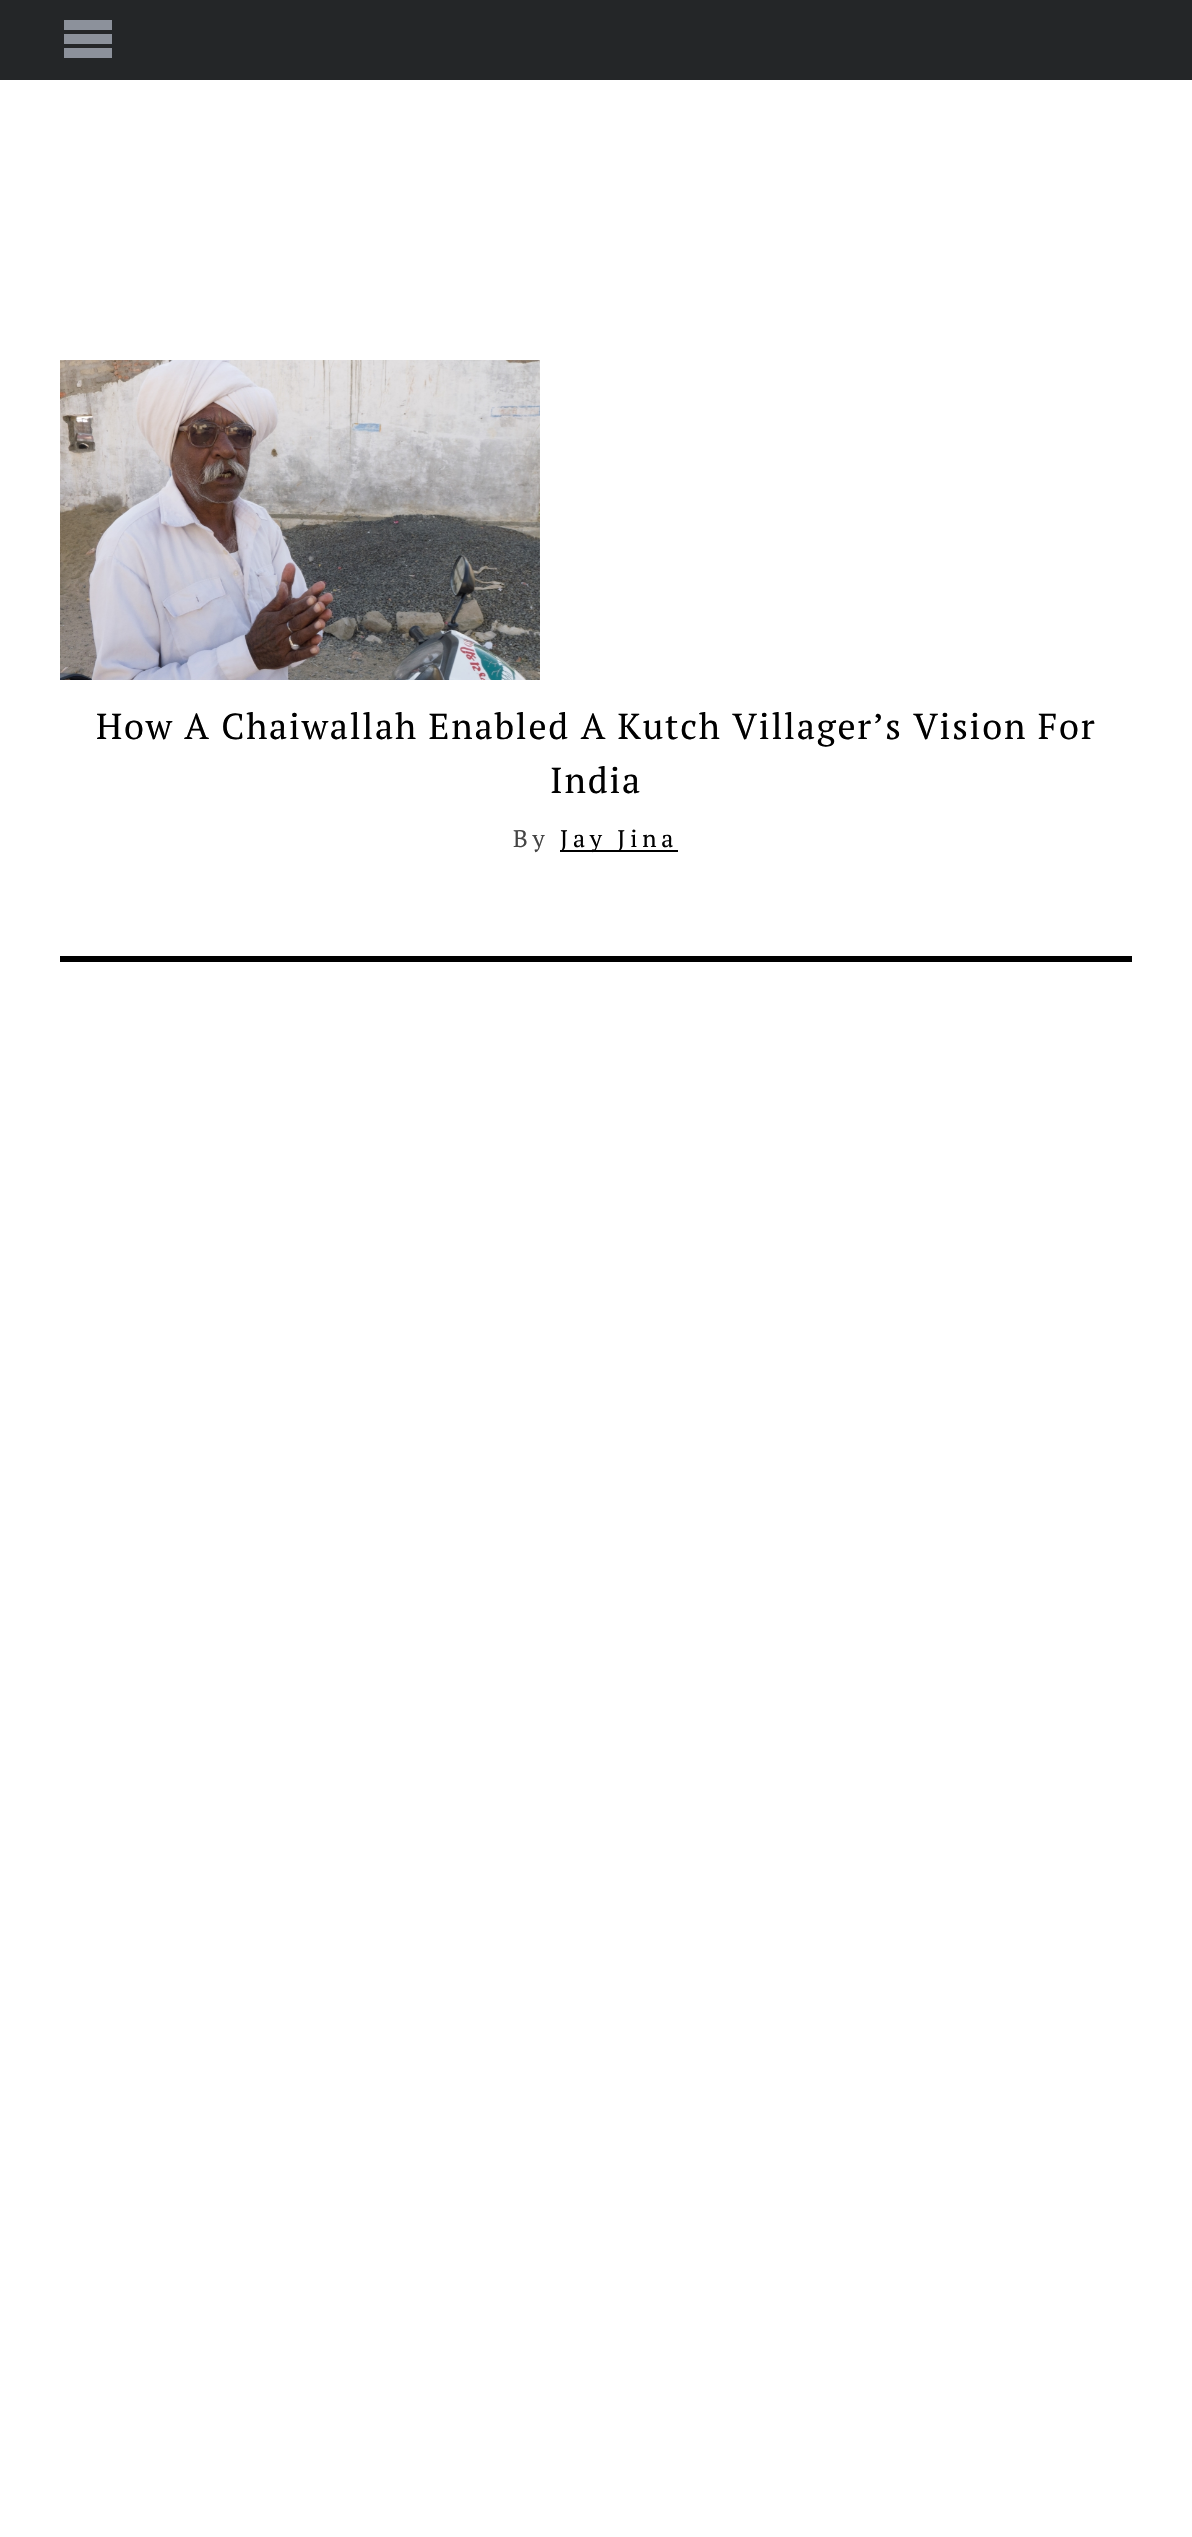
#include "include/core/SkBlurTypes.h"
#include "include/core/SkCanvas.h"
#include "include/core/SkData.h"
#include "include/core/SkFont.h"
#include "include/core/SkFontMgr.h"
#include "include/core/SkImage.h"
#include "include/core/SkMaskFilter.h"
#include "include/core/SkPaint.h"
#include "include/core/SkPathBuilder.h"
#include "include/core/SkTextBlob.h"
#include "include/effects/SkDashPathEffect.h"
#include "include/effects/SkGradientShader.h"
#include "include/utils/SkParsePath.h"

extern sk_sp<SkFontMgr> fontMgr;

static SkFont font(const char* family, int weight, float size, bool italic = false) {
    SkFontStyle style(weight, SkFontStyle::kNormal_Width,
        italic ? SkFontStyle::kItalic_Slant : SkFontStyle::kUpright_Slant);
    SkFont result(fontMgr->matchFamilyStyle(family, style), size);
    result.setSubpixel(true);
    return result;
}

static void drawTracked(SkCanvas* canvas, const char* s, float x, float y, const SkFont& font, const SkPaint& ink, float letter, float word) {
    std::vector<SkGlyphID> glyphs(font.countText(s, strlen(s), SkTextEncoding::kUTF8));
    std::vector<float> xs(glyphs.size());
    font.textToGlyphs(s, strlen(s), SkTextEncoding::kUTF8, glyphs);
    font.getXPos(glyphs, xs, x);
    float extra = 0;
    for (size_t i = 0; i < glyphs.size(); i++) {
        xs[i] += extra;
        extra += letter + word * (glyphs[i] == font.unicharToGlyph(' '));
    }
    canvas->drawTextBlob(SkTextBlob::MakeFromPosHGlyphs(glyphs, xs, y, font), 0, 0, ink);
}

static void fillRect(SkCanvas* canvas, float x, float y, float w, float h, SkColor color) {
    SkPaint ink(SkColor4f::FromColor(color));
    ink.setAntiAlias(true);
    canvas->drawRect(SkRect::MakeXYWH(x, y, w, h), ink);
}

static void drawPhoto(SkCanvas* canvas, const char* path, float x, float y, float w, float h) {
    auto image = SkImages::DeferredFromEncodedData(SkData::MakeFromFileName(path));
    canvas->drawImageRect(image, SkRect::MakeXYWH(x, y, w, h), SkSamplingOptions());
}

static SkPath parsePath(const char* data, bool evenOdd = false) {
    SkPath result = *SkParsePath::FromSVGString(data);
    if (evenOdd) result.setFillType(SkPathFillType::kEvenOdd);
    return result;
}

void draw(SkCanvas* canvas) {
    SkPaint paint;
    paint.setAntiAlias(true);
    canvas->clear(0xFFFFFFFF);
    fillRect(canvas, 0, 0, 1192, 80, 0xFF242628);
    paint.setColor(0xFF8C919B);
    canvas->drawPath(parsePath("M64 20H112V30H64ZM64 34H112V44H64ZM64 48H112V58H64Z"), paint);
    fillRect(canvas, 60, 956, 1072, 6, 0xFF000000);
    drawPhoto(canvas, "assets/img1.png", 60, 360, 480, 320);
    SkFont font1 = font("PT Serif", 400, 36);
    paint.setColor(0xFF000000);
    drawTracked(canvas, "How A Chaiwallah Enabled A Kutch Villager’s Vision For", 96, 739, font1, paint, 1.8f, 0);
    drawTracked(canvas, "India", 550, 793, font1, paint, 1.8f, 0);
    SkFont font2 = font("PT Serif", 400, 24);
    paint.setColor(0xFF444444);
    drawTracked(canvas, "By", 513, 847, font2, paint, 4.75f, 0);
    fillRect(canvas, 560, 850, 118, 2, 0xFF000000);
    paint.setColor(0xFF000000);
    drawTracked(canvas, "Jay Jina", 560, 847, font2, paint, 4.75f, 0);
}
